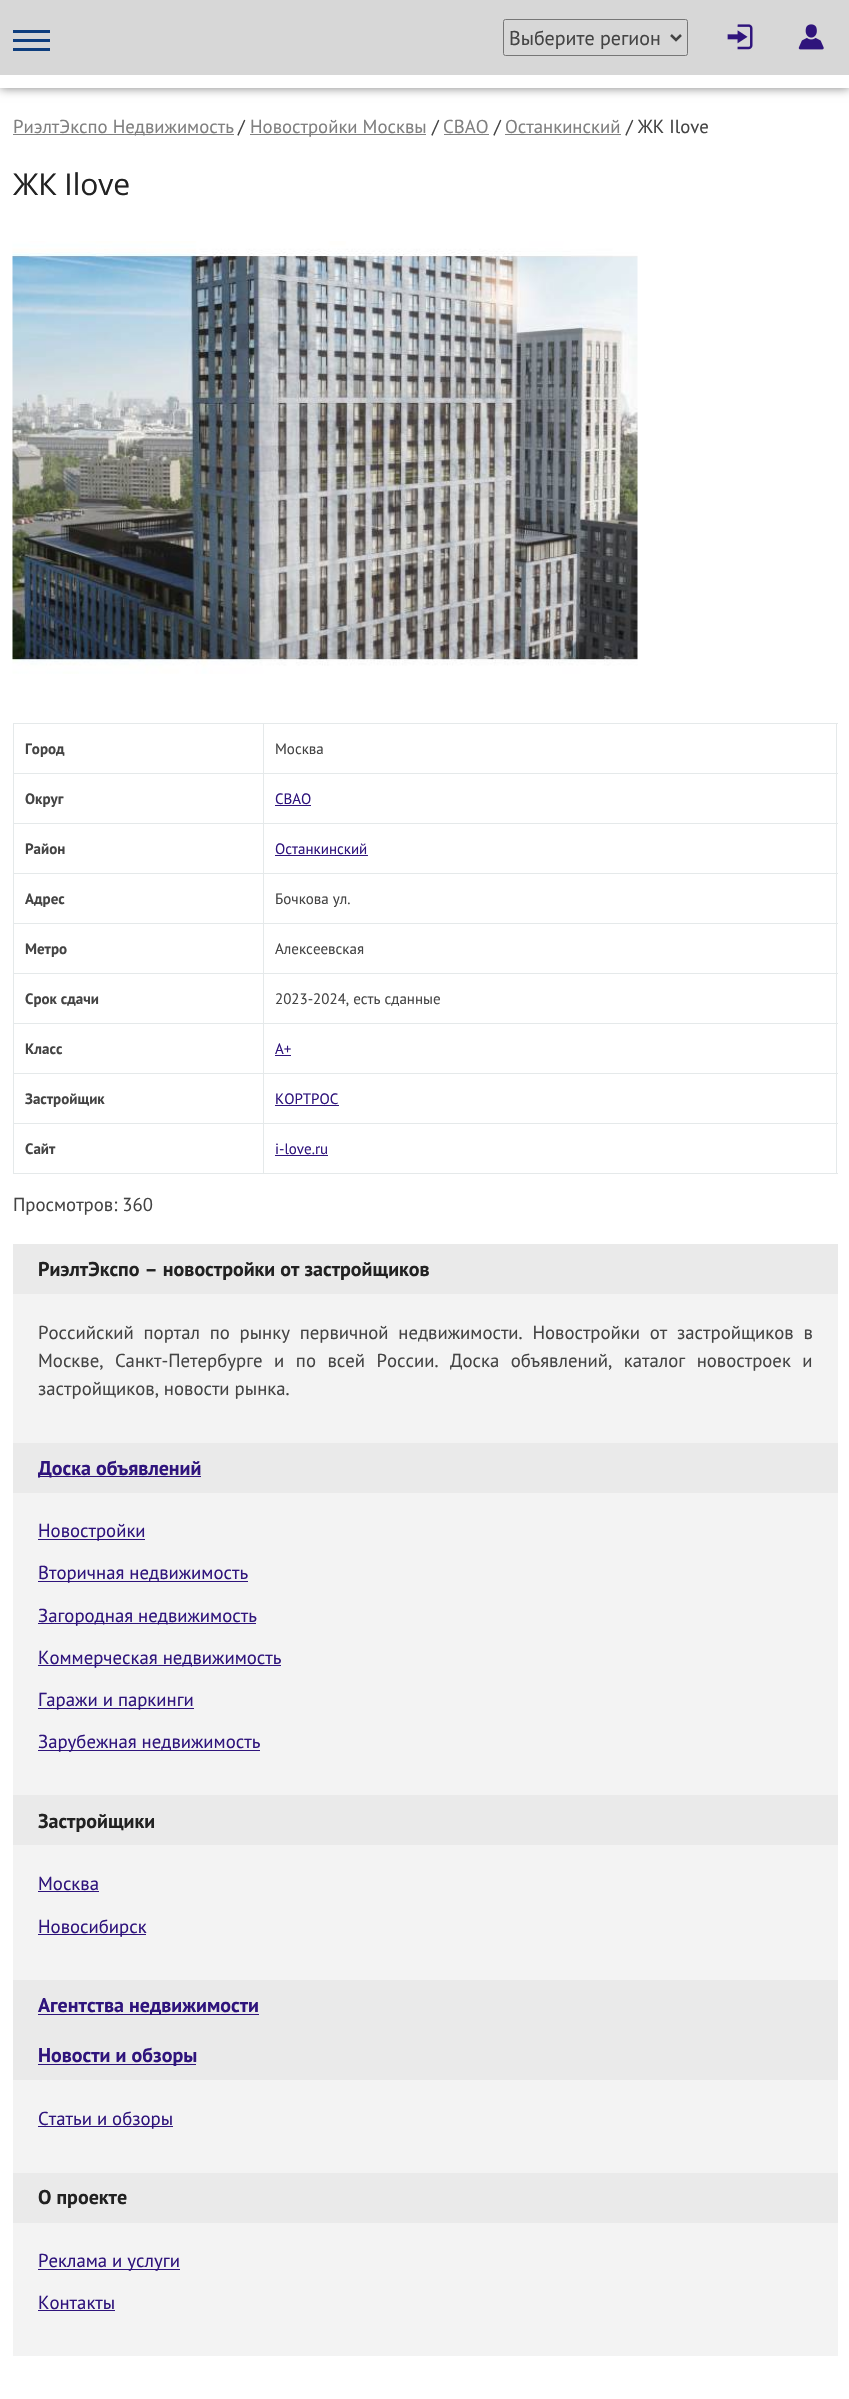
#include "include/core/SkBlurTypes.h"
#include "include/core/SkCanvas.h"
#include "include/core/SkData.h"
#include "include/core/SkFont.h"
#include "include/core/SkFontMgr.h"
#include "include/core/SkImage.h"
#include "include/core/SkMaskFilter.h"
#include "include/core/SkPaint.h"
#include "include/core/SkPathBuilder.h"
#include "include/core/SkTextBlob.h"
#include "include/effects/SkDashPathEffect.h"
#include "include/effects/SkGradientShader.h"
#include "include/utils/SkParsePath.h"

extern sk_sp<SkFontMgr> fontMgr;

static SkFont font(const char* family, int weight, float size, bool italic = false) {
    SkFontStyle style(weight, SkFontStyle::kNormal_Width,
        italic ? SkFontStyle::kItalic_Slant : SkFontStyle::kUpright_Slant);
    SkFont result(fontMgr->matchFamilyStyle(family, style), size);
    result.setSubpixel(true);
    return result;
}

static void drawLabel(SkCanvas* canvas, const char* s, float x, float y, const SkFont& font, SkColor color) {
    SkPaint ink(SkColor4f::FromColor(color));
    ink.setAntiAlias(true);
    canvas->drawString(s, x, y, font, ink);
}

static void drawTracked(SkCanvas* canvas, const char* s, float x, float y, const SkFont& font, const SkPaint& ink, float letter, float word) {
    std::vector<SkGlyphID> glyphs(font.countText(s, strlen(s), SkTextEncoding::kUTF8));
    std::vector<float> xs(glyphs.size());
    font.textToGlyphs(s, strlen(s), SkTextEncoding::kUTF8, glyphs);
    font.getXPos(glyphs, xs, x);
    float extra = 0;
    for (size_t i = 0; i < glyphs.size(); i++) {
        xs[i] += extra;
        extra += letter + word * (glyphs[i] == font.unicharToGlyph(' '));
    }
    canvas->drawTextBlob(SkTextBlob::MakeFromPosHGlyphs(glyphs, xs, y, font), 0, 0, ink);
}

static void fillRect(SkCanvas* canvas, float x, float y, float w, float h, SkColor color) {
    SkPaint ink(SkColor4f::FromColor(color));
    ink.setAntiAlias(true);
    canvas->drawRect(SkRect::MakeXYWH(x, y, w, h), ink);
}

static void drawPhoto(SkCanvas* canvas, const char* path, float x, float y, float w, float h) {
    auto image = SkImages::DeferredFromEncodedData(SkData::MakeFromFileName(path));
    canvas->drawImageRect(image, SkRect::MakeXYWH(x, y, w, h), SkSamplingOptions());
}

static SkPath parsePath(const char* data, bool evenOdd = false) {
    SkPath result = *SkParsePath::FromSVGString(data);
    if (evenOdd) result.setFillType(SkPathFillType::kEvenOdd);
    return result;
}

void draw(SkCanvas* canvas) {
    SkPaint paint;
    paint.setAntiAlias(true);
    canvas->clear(0xFFFFFFFF);
    canvas->save();
    canvas->clipPath(parsePath("M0 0H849V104H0ZM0-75H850V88H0Z", true), true);
    paint.setColor(0x80000000);
    paint.setMaskFilter(SkMaskFilter::MakeBlur(kNormal_SkBlurStyle, 5));
    canvas->drawRect(SkRect::MakeXYWH(0, -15, 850, 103), paint);
    paint.setMaskFilter(nullptr);
    canvas->restore();
    fillRect(canvas, 0, 0, 849, 75, 0xFFD7D7D7);
    fillRect(canvas, 13, 39, 37, 3, 0xFF0E3E7E);
    fillRect(canvas, 13, 30, 37, 3, 0xFF0E3E7E);
    fillRect(canvas, 13, 48, 37, 3, 0xFF0E3E7E);
    paint.setStroke(true);
    paint.setStrokeWidth(1);
    paint.setColor(0xFF767676);
    canvas->drawRoundRect(SkRect::MakeXYWH(503.5f, 19.5f, 184, 36), 2, 2, paint);
    paint.setStrokeWidth(2.5f);
    paint.setColor(0xFF444444);
    canvas->drawPath(parsePath("M671 35L676 40L681 35"), paint);
    SkFont font1 = font("PT Sans", 400, 20);
    drawLabel(canvas, "Выберите регион", 509, 45, font1, 0xFF444444);
    drawPhoto(canvas, "assets/img1.png", 727, 24, 26, 26);
    drawPhoto(canvas, "assets/img2.png", 798, 24, 26, 26);
    fillRect(canvas, 13, 134, 221, 1, 0xFF808080);
    SkFont font2 = font("PT Sans", 400, 18.75f);
    drawLabel(canvas, "РиэлтЭкспо Недвижимость", 13, 133, font2, 0xFF808080);
    drawLabel(canvas, "/", 238, 133, font2, 0xFF444444);
    fillRect(canvas, 250, 134, 176, 1, 0xFF808080);
    drawLabel(canvas, "Новостройки Москвы", 250, 133, font2, 0xFF808080);
    drawLabel(canvas, "/", 432, 133, font2, 0xFF444444);
    drawLabel(canvas, "СВАО", 443, 133, font2, 0xFF808080);
    fillRect(canvas, 444, 134, 45, 1, 0xFF808080);
    drawLabel(canvas, "/", 494, 133, font2, 0xFF444444);
    drawLabel(canvas, "Останкинский", 505, 133, font2, 0xFF808080);
    fillRect(canvas, 505, 134, 116, 1, 0xFF808080);
    drawLabel(canvas, "/ ЖК Ilove", 626, 133, font2, 0xFF444444);
    SkFont font3 = font("Open Sans", 400, 30);
    drawLabel(canvas, "ЖК Ilove", 13, 195, font3, 0xFF222222);
    drawPhoto(canvas, "assets/img3.png", 12, 241, 626, 433);
    fillRect(canvas, 263, 723, 575, 1, 0xFFE5E9EA);
    fillRect(canvas, 263, 773, 575, 1, 0xFFE5E9EA);
    fillRect(canvas, 263, 823, 575, 1, 0xFFE5E9EA);
    fillRect(canvas, 263, 873, 575, 1, 0xFFE5E9EA);
    fillRect(canvas, 263, 923, 575, 1, 0xFFE5E9EA);
    fillRect(canvas, 263, 973, 575, 1, 0xFFE5E9EA);
    fillRect(canvas, 263, 1023, 575, 1, 0xFFE5E9EA);
    fillRect(canvas, 263, 1073, 575, 1, 0xFFE5E9EA);
    fillRect(canvas, 263, 1123, 575, 1, 0xFFE5E9EA);
    fillRect(canvas, 836, 1123, 1, 51, 0xFFE5E9EA);
    fillRect(canvas, 263, 1173, 575, 1, 0xFFE5E9EA);
    fillRect(canvas, 263, 1123, 1, 51, 0xFFE5E9EA);
    fillRect(canvas, 13, 1123, 251, 1, 0xFFE5E9EA);
    fillRect(canvas, 263, 1073, 1, 51, 0xFFE5E9EA);
    fillRect(canvas, 13, 1073, 251, 1, 0xFFE5E9EA);
    fillRect(canvas, 263, 1023, 1, 51, 0xFFE5E9EA);
    fillRect(canvas, 13, 1023, 251, 1, 0xFFE5E9EA);
    fillRect(canvas, 263, 973, 1, 51, 0xFFE5E9EA);
    fillRect(canvas, 13, 973, 251, 1, 0xFFE5E9EA);
    fillRect(canvas, 263, 923, 1, 51, 0xFFE5E9EA);
    fillRect(canvas, 13, 923, 251, 1, 0xFFE5E9EA);
    fillRect(canvas, 263, 873, 1, 51, 0xFFE5E9EA);
    fillRect(canvas, 13, 873, 251, 1, 0xFFE5E9EA);
    fillRect(canvas, 263, 823, 1, 51, 0xFFE5E9EA);
    fillRect(canvas, 13, 823, 251, 1, 0xFFE5E9EA);
    fillRect(canvas, 263, 773, 1, 51, 0xFFE5E9EA);
    fillRect(canvas, 13, 773, 251, 1, 0xFFE5E9EA);
    fillRect(canvas, 263, 723, 1, 51, 0xFFE5E9EA);
    fillRect(canvas, 13, 723, 251, 1, 0xFFE5E9EA);
    fillRect(canvas, 13, 1173, 251, 1, 0xFFE5E9EA);
    fillRect(canvas, 13, 1123, 1, 51, 0xFFE5E9EA);
    fillRect(canvas, 13, 1073, 1, 51, 0xFFE5E9EA);
    fillRect(canvas, 13, 1023, 1, 51, 0xFFE5E9EA);
    fillRect(canvas, 13, 973, 1, 51, 0xFFE5E9EA);
    fillRect(canvas, 13, 923, 1, 51, 0xFFE5E9EA);
    fillRect(canvas, 13, 873, 1, 51, 0xFFE5E9EA);
    fillRect(canvas, 13, 823, 1, 51, 0xFFE5E9EA);
    fillRect(canvas, 13, 773, 1, 51, 0xFFE5E9EA);
    fillRect(canvas, 13, 723, 1, 51, 0xFFE5E9EA);
    SkFont font4 = font("PT Sans", 700, 15);
    drawLabel(canvas, "Город", 25, 754, font4, 0xFF444444);
    fillRect(canvas, 836, 1073, 1, 51, 0xFFE5E9EA);
    fillRect(canvas, 836, 1023, 1, 51, 0xFFE5E9EA);
    fillRect(canvas, 836, 973, 1, 51, 0xFFE5E9EA);
    fillRect(canvas, 836, 923, 1, 51, 0xFFE5E9EA);
    fillRect(canvas, 836, 873, 1, 51, 0xFFE5E9EA);
    fillRect(canvas, 836, 823, 1, 51, 0xFFE5E9EA);
    fillRect(canvas, 836, 773, 1, 51, 0xFFE5E9EA);
    fillRect(canvas, 836, 723, 1, 51, 0xFFE5E9EA);
    SkFont font5 = font("PT Sans", 400, 15);
    drawLabel(canvas, "Москва", 275, 754, font5, 0xFF444444);
    drawLabel(canvas, "Округ", 25, 804, font4, 0xFF444444);
    drawLabel(canvas, "СВАО", 275, 804, font5, 0xFF2F147C);
    fillRect(canvas, 275, 805, 36, 1, 0xFF2F147C);
    drawLabel(canvas, "Район", 25, 854, font4, 0xFF444444);
    drawLabel(canvas, "Останкинский", 275, 854, font5, 0xFF2F147C);
    fillRect(canvas, 275, 855, 93, 1, 0xFF2F147C);
    drawLabel(canvas, "Адрес", 25, 904, font4, 0xFF444444);
    drawLabel(canvas, "Бочкова ул.", 275, 904, font5, 0xFF444444);
    drawLabel(canvas, "Метро", 25, 954, font4, 0xFF444444);
    drawLabel(canvas, "Алексеевская", 275, 954, font5, 0xFF444444);
    drawLabel(canvas, "Срок сдачи", 25, 1004, font4, 0xFF444444);
    drawLabel(canvas, "2023-2024, есть сданные", 275, 1004, font5, 0xFF444444);
    drawLabel(canvas, "Класс", 25, 1054, font4, 0xFF444444);
    drawLabel(canvas, "A+", 275, 1054, font5, 0xFF2F147C);
    fillRect(canvas, 275, 1055, 16, 1, 0xFF2F147C);
    drawLabel(canvas, "Застройщик", 25, 1104, font4, 0xFF444444);
    drawLabel(canvas, "КОРТРОС", 275, 1104, font5, 0xFF2F147C);
    fillRect(canvas, 275, 1105, 64, 1, 0xFF2F147C);
    drawLabel(canvas, "Сайт", 25, 1154, font4, 0xFF444444);
    drawLabel(canvas, "i-love.ru", 275, 1154, font5, 0xFF2F147C);
    fillRect(canvas, 275, 1155, 53, 1, 0xFF2F147C);
    drawLabel(canvas, "Просмотров: 360", 13, 1211, font2, 0xFF444444);
    fillRect(canvas, 13, 1244, 825, 50, 0xFFEAEAEA);
    SkFont font6 = font("PT Sans", 700, 20);
    drawLabel(canvas, "РиэлтЭкспо – новостройки от застройщиков", 38, 1276, font6, 0xFF222222);
    fillRect(canvas, 13, 1294, 825, 149, 0xFFF3F3F3);
    paint.setStroke(false);
    drawTracked(canvas, "Российский портал по рынку первичной недвижимости. Новостройки от застройщиков в", 38, 1339, font2, paint, 0, 4.75f);
    drawTracked(canvas, "Москве, Санкт-Петербурге и по всей России. Доска объявлений, каталог новостроек и", 38, 1367, font2, paint, 0, 6.5f);
    drawLabel(canvas, "застройщиков, новости рынка.", 38, 1395, font2, 0xFF444444);
    fillRect(canvas, 13, 1443, 825, 50, 0xFFEAEAEA);
    fillRect(canvas, 38, 1476, 163, 1, 0xFF2F147C);
    drawLabel(canvas, "Доска объявлений", 38, 1475, font6, 0xFF2F147C);
    fillRect(canvas, 13, 1493, 825, 302, 0xFFF3F3F3);
    fillRect(canvas, 38, 1539, 107, 1, 0xFF2F147C);
    drawLabel(canvas, "Новостройки", 38, 1537, font2, 0xFF2F147C);
    fillRect(canvas, 38, 1581, 210, 1, 0xFF2F147C);
    drawLabel(canvas, "Вторичная недвижимость", 38, 1579, font2, 0xFF2F147C);
    fillRect(canvas, 38, 1623, 218, 1, 0xFF2F147C);
    drawLabel(canvas, "Загородная недвижимость", 38, 1622, font2, 0xFF2F147C);
    fillRect(canvas, 38, 1665, 243, 1, 0xFF2F147C);
    drawLabel(canvas, "Коммерческая недвижимость", 38, 1664, font2, 0xFF2F147C);
    fillRect(canvas, 38, 1708, 156, 1, 0xFF2F147C);
    drawLabel(canvas, "Гаражи и паркинги", 38, 1706, font2, 0xFF2F147C);
    fillRect(canvas, 38, 1750, 222, 1, 0xFF2F147C);
    drawLabel(canvas, "Зарубежная недвижимость", 38, 1748, font2, 0xFF2F147C);
    fillRect(canvas, 13, 1795, 825, 50, 0xFFEAEAEA);
    drawLabel(canvas, "Застройщики", 38, 1828, font6, 0xFF222222);
    fillRect(canvas, 13, 1845, 825, 135, 0xFFF3F3F3);
    drawLabel(canvas, "Москва", 38, 1890, font2, 0xFF2F147C);
    fillRect(canvas, 38, 1891, 61, 1, 0xFF2F147C);
    fillRect(canvas, 38, 1934, 108, 1, 0xFF2F147C);
    drawLabel(canvas, "Новосибирск", 38, 1933, font2, 0xFF2F147C);
    fillRect(canvas, 13, 1980, 825, 100, 0xFFEAEAEA);
    fillRect(canvas, 38, 2014, 221, 1, 0xFF2F147C);
    drawLabel(canvas, "Агентства недвижимости", 38, 2012, font6, 0xFF2F147C);
    fillRect(canvas, 38, 2064, 158, 1, 0xFF2F147C);
    drawLabel(canvas, "Новости и обзоры", 38, 2062, font6, 0xFF2F147C);
    fillRect(canvas, 13, 2080, 825, 93, 0xFFF3F3F3);
    fillRect(canvas, 38, 2126, 135, 1, 0xFF2F147C);
    drawLabel(canvas, "Статьи и обзоры", 38, 2125, font2, 0xFF2F147C);
    fillRect(canvas, 13, 2173, 825, 50, 0xFFEAEAEA);
    drawLabel(canvas, "О проекте", 38, 2204, font6, 0xFF222222);
    fillRect(canvas, 13, 2223, 825, 133, 0xFFF3F3F3);
    fillRect(canvas, 38, 2269, 142, 1, 0xFF2F147C);
    drawLabel(canvas, "Реклама и услуги", 38, 2267, font2, 0xFF2F147C);
    drawLabel(canvas, "Контакты", 38, 2309, font2, 0xFF2F147C);
    fillRect(canvas, 38, 2310, 77, 1, 0xFF2F147C);
}
